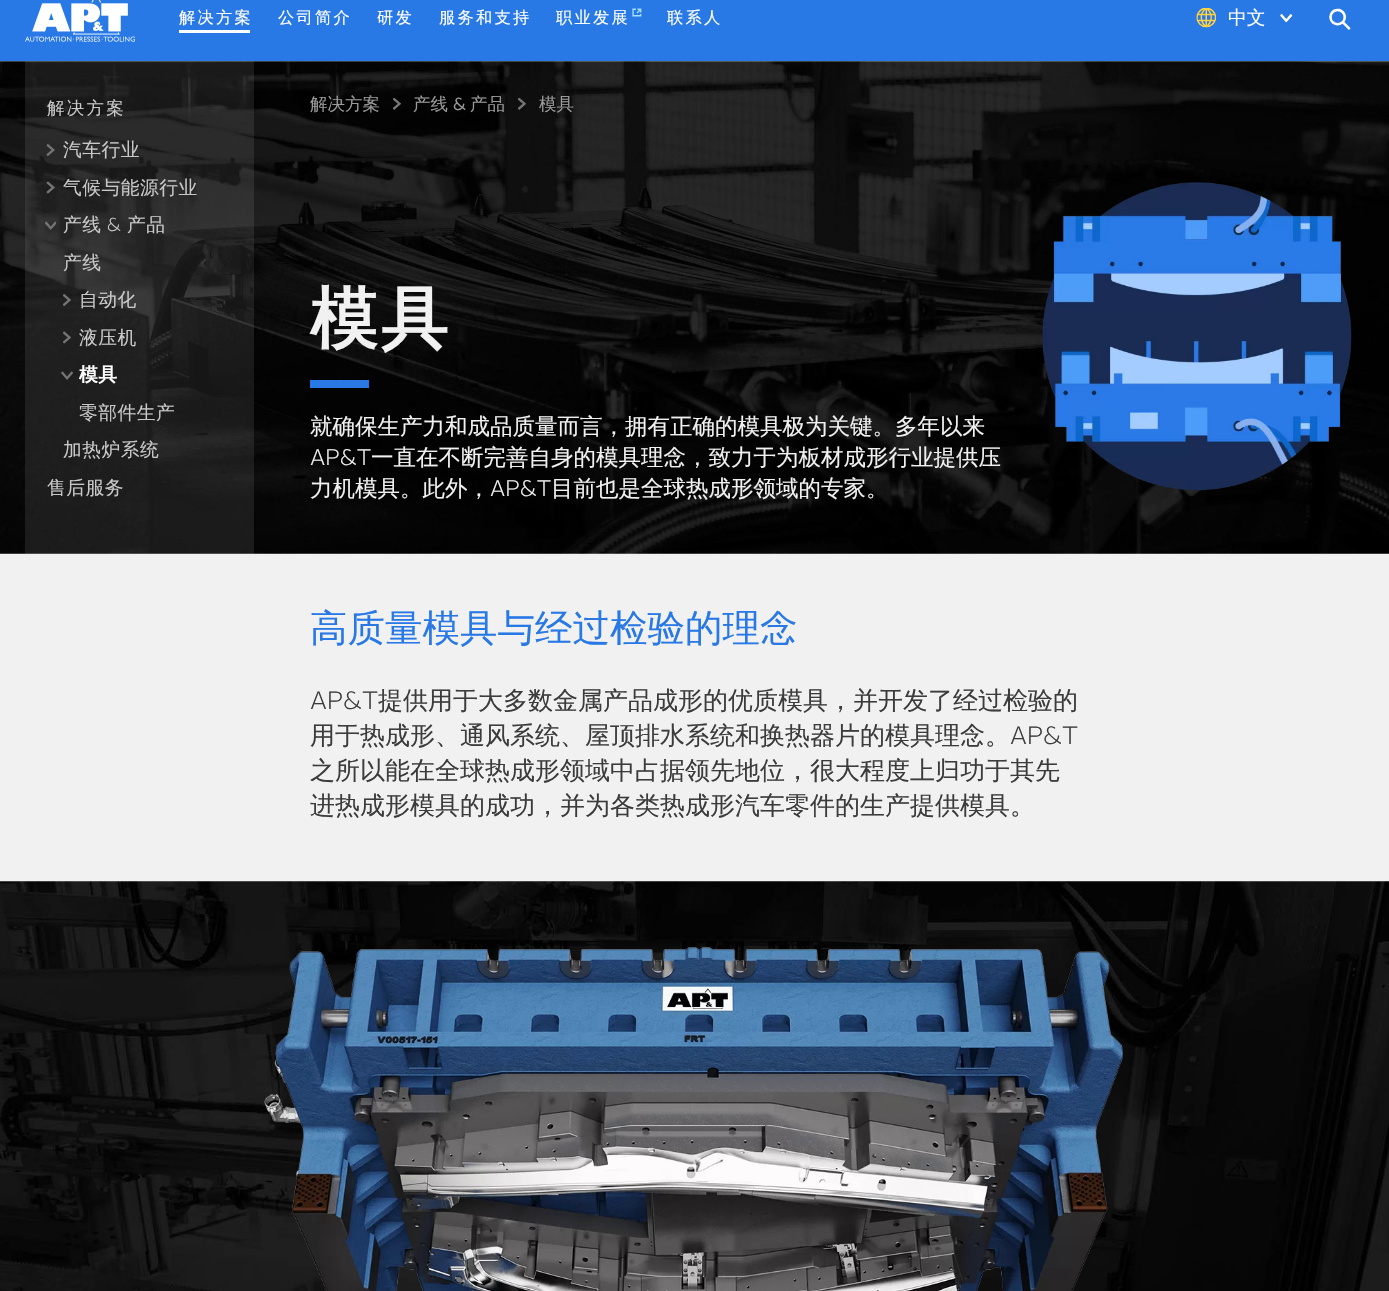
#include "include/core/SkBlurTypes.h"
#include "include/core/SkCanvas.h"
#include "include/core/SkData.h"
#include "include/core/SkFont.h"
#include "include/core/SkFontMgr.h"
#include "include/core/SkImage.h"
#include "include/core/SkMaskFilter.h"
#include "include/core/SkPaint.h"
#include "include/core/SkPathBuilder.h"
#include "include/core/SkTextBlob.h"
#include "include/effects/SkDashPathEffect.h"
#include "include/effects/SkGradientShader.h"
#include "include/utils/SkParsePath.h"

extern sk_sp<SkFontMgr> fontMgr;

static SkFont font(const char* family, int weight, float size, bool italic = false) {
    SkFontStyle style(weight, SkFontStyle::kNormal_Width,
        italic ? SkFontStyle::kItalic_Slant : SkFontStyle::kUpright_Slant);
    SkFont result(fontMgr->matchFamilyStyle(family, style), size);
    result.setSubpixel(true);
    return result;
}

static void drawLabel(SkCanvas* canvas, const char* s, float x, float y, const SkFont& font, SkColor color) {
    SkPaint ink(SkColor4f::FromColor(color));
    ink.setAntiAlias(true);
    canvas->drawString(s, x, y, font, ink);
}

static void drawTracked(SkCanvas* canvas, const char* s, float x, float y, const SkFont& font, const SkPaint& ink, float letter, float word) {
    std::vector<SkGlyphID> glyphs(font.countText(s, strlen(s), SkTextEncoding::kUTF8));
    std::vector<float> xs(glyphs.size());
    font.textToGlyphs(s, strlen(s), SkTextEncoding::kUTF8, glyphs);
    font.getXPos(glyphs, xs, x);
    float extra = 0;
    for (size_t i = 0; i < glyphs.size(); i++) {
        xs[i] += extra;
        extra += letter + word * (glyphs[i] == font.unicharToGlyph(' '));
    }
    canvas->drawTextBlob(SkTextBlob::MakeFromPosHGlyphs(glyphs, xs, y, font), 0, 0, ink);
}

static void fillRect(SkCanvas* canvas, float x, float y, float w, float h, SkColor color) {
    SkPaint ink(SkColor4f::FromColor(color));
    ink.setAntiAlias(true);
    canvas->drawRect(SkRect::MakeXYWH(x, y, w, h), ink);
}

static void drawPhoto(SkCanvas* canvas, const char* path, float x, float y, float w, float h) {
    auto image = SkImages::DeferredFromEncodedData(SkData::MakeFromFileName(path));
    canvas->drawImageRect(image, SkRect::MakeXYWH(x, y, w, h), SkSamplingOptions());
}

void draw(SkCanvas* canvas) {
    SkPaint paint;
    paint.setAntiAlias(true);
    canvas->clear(0xFFF1F1F1);
    fillRect(canvas, 0, 0, 1389, 61, 0xFF2878E6);
    drawPhoto(canvas, "assets/img1.png", 25, 0, 110, 42);
    SkFont font1 = font("WenQuanYi Zen Hei", 500, 16.25f);
    paint.setColor(0xFFFFFFFF);
    drawTracked(canvas, "解决方案", 179, 23, font1, paint, 2.25f, 0);
    fillRect(canvas, 179, 30, 71, 3, 0xFFFFFFFF);
    drawTracked(canvas, "公司简介", 278, 23, font1, paint, 2.25f, 0);
    drawTracked(canvas, "研发", 377, 23, font1, paint, 2.25f, 0);
    drawTracked(canvas, "服务和支持", 439, 23, font1, paint, 2.25f, 0);
    drawTracked(canvas, "职业发展", 556, 23, font1, paint, 2.25f, 0);
    drawPhoto(canvas, "assets/img2.png", 632, 8, 10, 9);
    drawTracked(canvas, "联系人", 667, 23, font1, paint, 2.25f, 0);
    drawPhoto(canvas, "assets/img3.png", 1196, 8, 20, 20);
    SkFont font2 = font("WenQuanYi Zen Hei", 500, 18.75f);
    drawLabel(canvas, "中文", 1228, 24, font2, 0xFFFFFFFF);
    drawPhoto(canvas, "assets/img4.png", 1280, 14, 13, 9);
    drawPhoto(canvas, "assets/img5.png", 1329, 8, 22, 22);
    drawPhoto(canvas, "assets/img6.png", 0, 61, 1389, 493);
    fillRect(canvas, 25, 61, 229, 493, 0x1AD8D8D8);
    SkFont font3 = font("WenQuanYi Zen Hei", 500, 17.5f);
    paint.setColor(0xFFC8C8C8);
    drawTracked(canvas, "解决方案", 47, 114, font3, paint, 2.25f, 0);
    drawPhoto(canvas, "assets/img7.png", 46, 144, 9, 12);
    drawTracked(canvas, "汽车行业", 63, 156, font2, paint, 0.5f, 0);
    drawPhoto(canvas, "assets/img8.png", 46, 181, 9, 13);
    drawTracked(canvas, "气候与能源行业", 63, 194, font2, paint, 0.5f, 0);
    drawPhoto(canvas, "assets/img9.png", 45, 221, 11, 9);
    drawTracked(canvas, "产线", 63, 231, font2, paint, 0.5f, 0);
    SkFont font4 = font("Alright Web", 300, 18.75f);
    drawTracked(canvas, "&", 107, 231, font4, paint, 0.5f, 0);
    drawTracked(canvas, "产品", 127, 231, font2, paint, 0.5f, 0);
    drawTracked(canvas, "产线", 63, 269, font2, paint, 0.5f, 0);
    drawPhoto(canvas, "assets/img10.png", 63, 294, 8, 12);
    drawTracked(canvas, "自动化", 79, 306, font2, paint, 0.5f, 0);
    drawPhoto(canvas, "assets/img11.png", 63, 331, 8, 13);
    drawTracked(canvas, "液压机", 79, 344, font2, paint, 0.5f, 0);
    drawPhoto(canvas, "assets/img12.png", 61, 371, 12, 9);
    SkFont font5 = font("WenQuanYi Zen Hei", 700, 18.75f);
    paint.setColor(0xFFFFFFFF);
    drawTracked(canvas, "模具", 79, 381, font5, paint, 0.5f, 0);
    paint.setColor(0xFFC8C8C8);
    drawTracked(canvas, "零部件生产", 79, 419, font2, paint, 0.5f, 0);
    drawTracked(canvas, "加热炉系统", 63, 456, font2, paint, 0.5f, 0);
    drawTracked(canvas, "售后服务", 47, 494, font2, paint, 0.5f, 0);
    drawLabel(canvas, "解决方案", 310, 110, font3, 0xFF9A9A9A);
    drawPhoto(canvas, "assets/img13.png", 393, 98, 8, 12);
    drawLabel(canvas, "产线", 413, 110, font3, 0xFF9A9A9A);
    SkFont font6 = font("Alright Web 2", 300, 17.5f);
    drawLabel(canvas, "&", 453, 110, font6, 0xFF9A9A9A);
    drawLabel(canvas, "产品", 470, 110, font3, 0xFF9A9A9A);
    drawPhoto(canvas, "assets/img14.png", 518, 98, 8, 12);
    drawLabel(canvas, "模具", 539, 110, font3, 0xFF9A9A9A);
    SkFont font7 = font("WenQuanYi Zen Hei", 700, 67.5f);
    paint.setColor(0xFFF1F1F1);
    drawTracked(canvas, "模具", 310, 342, font7, paint, 3, 0);
    fillRect(canvas, 310, 380, 59, 8, 0xFF2878E6);
    SkFont font8 = font("WenQuanYi Zen Hei", 500, 22.5f);
    drawLabel(canvas, "就确保生产力和成品质量而言，拥有正确的模具极为关键。多年以来", 310, 434, font8, 0xFFF1F1F1);
    SkFont font9 = font("Alright Web", 300, 22.5f);
    drawLabel(canvas, "AP&T", 310, 465, font9, 0xFFF1F1F1);
    drawLabel(canvas, "一直在不断完善自身的模具理念，致力于为板材成形行业提供压", 371, 465, font8, 0xFFF1F1F1);
    drawLabel(canvas, "力机模具。此外，", 310, 496, font8, 0xFFF1F1F1);
    drawLabel(canvas, "AP&T", 490, 496, font9, 0xFFF1F1F1);
    drawLabel(canvas, "目前也是全球热成形领域的专家。", 551, 496, font8, 0xFFF1F1F1);
    drawPhoto(canvas, "assets/img15.png", 1042, 182, 310, 309);
    SkFont font10 = font("WenQuanYi Zen Hei", 500, 37.5f);
    drawLabel(canvas, "高质量模具与经过检验的理念", 310, 641, font10, 0xFF2878E6);
    SkFont font11 = font("Alright Web", 300, 25);
    drawLabel(canvas, "AP&T", 310, 709, font11, 0xFF3C3C3C);
    SkFont font12 = font("WenQuanYi Zen Hei", 500, 25);
    drawLabel(canvas, "提供用于大多数金属产品成形的优质模具，并开发了经过检验的", 378, 709, font12, 0xFF3C3C3C);
    drawLabel(canvas, "用于热成形、通风系统、屋顶排水系统和换热器片的模具理念。", 310, 744, font12, 0xFF3C3C3C);
    drawLabel(canvas, "AP&T", 1010, 744, font11, 0xFF3C3C3C);
    drawLabel(canvas, "之所以能在全球热成形领域中占据领先地位，很大程度上归功于其先", 310, 779, font12, 0xFF3C3C3C);
    drawLabel(canvas, "进热成形模具的成功，并为各类热成形汽车零件的生产提供模具。", 310, 814, font12, 0xFF3C3C3C);
    drawPhoto(canvas, "assets/img16.png", 0, 881, 1389, 410);
    drawPhoto(canvas, "assets/img17.png", 264, 947, 859, 344);
}
